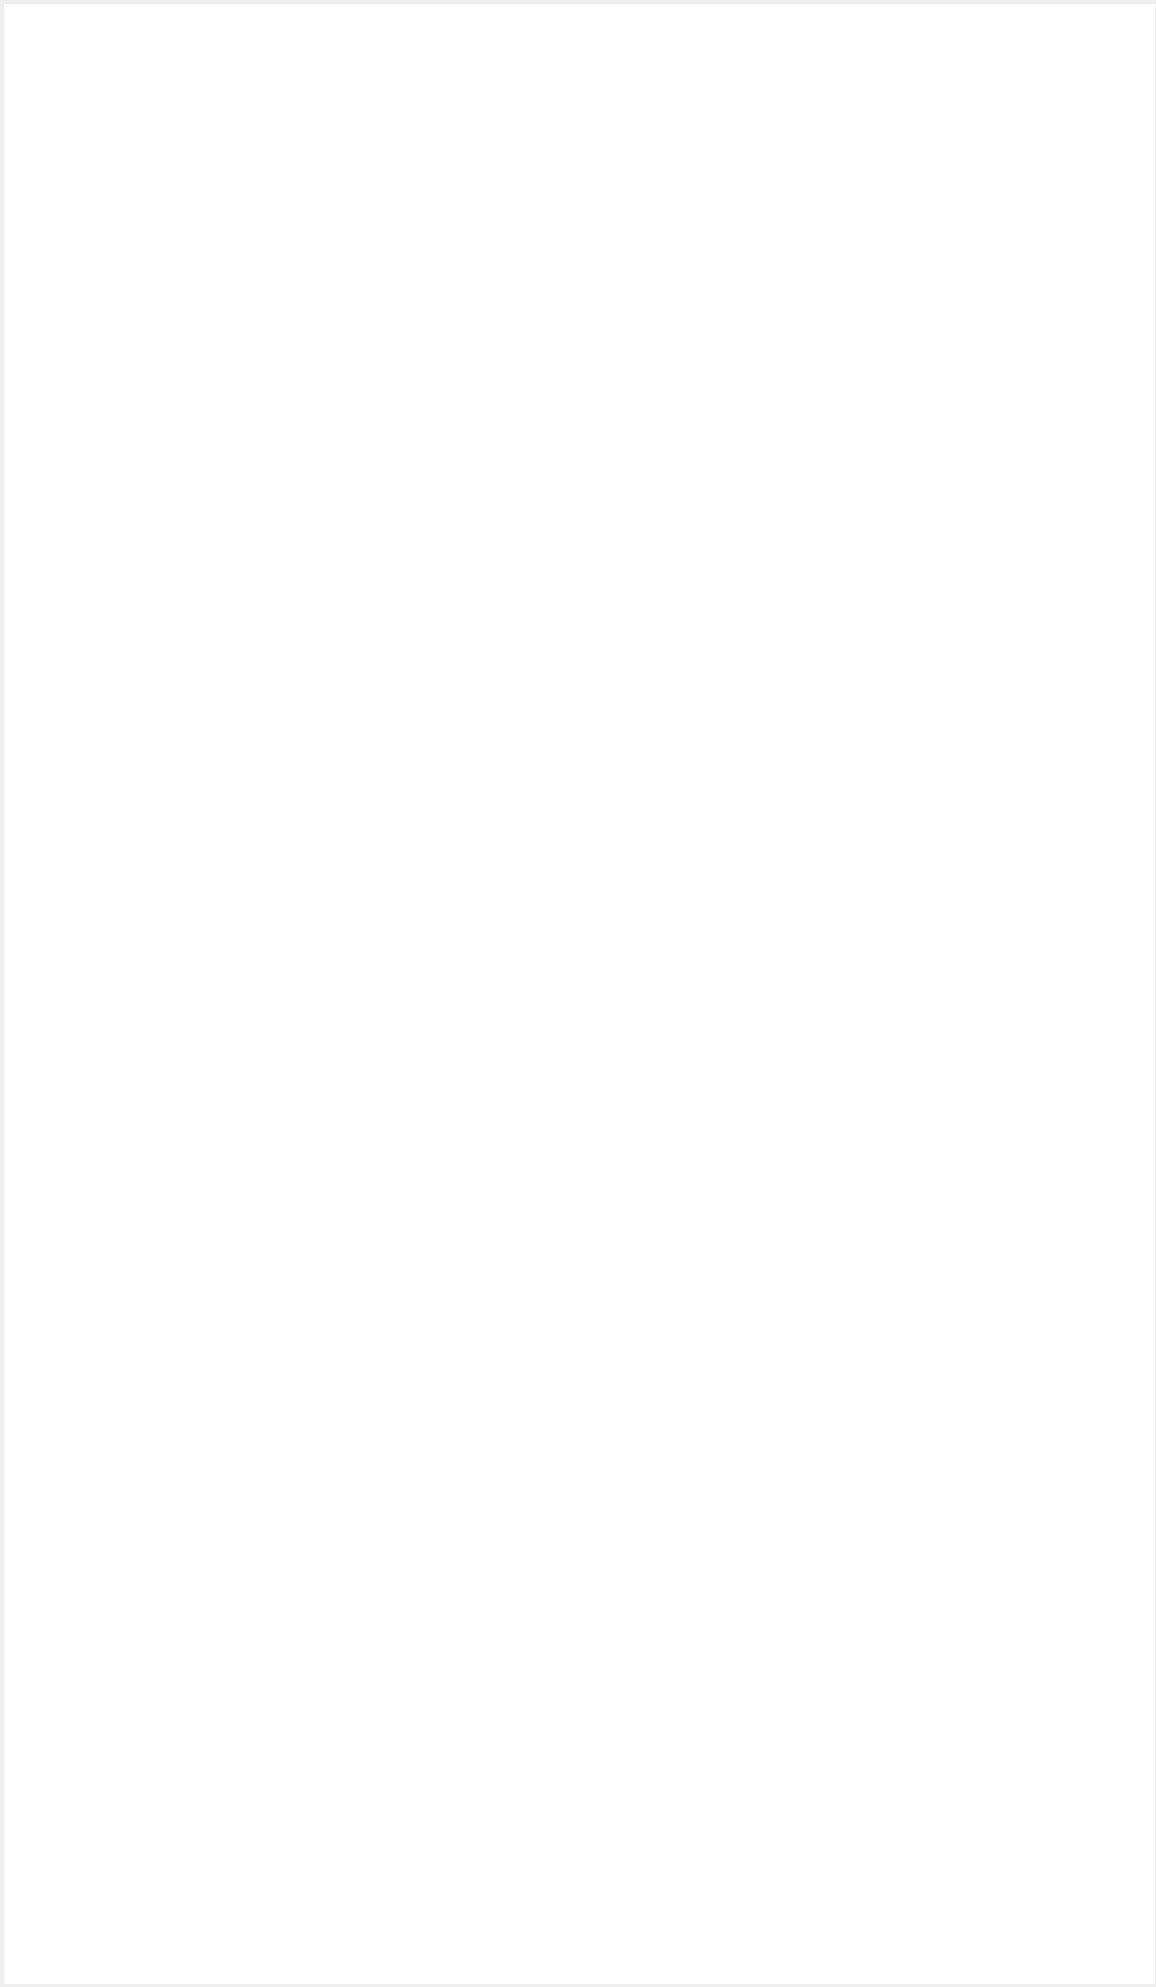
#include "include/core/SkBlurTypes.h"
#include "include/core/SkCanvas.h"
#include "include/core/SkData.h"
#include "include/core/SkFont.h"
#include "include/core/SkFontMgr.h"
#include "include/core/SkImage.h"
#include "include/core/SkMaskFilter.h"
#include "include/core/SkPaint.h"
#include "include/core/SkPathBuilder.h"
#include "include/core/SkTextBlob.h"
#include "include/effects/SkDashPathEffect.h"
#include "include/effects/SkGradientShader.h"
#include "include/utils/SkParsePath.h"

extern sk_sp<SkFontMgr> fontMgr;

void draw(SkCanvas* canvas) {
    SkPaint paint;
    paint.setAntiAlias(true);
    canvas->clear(0xFFFFFFFF);
    paint.setStroke(true);
    paint.setStrokeWidth(4);
    paint.setColor(0xFFEFEFF0);
    canvas->drawRect(SkRect::MakeXYWH(2, 2, 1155, 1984), paint);
}
